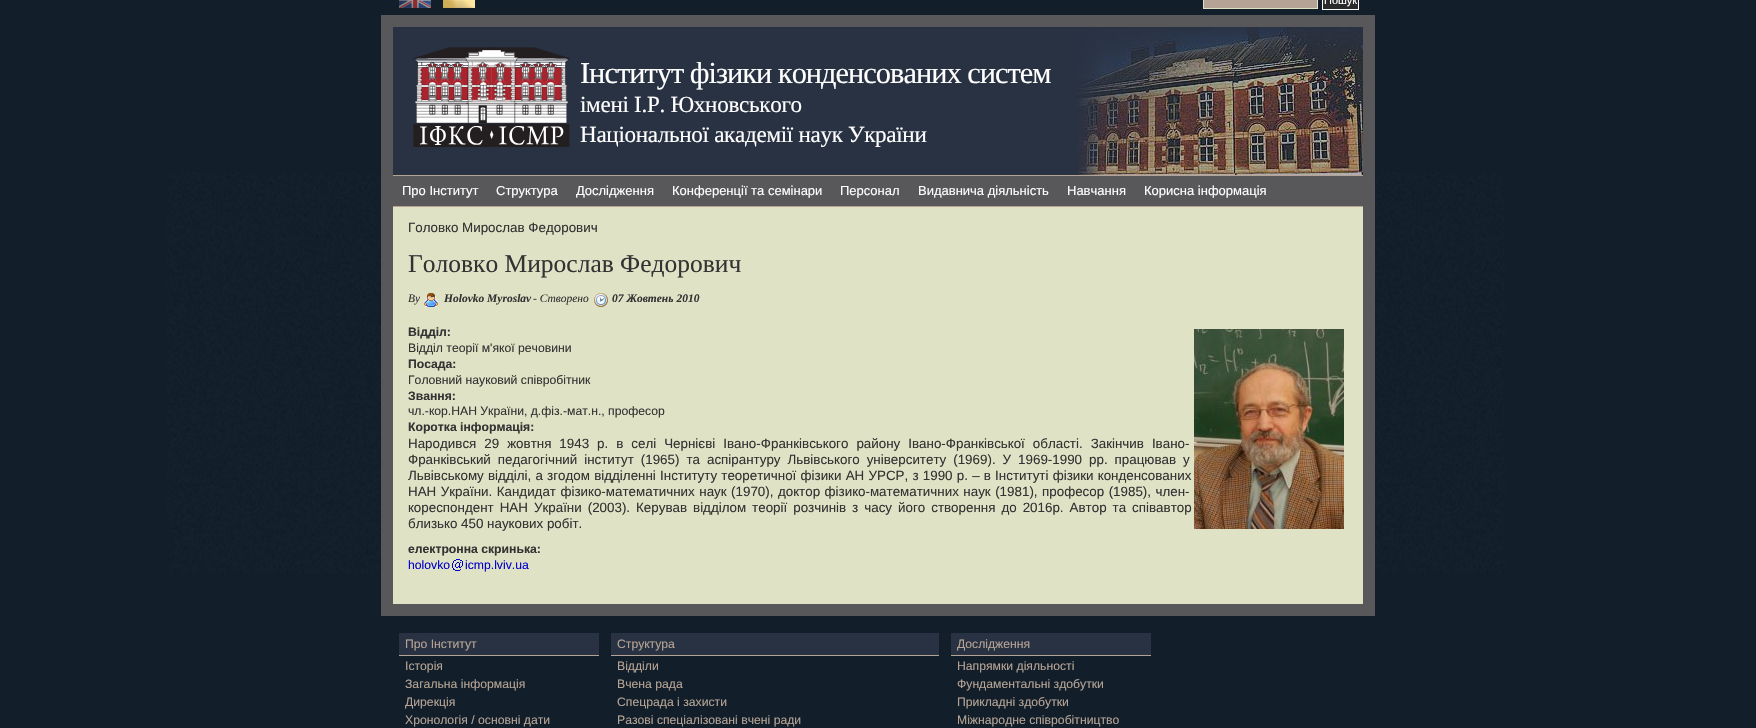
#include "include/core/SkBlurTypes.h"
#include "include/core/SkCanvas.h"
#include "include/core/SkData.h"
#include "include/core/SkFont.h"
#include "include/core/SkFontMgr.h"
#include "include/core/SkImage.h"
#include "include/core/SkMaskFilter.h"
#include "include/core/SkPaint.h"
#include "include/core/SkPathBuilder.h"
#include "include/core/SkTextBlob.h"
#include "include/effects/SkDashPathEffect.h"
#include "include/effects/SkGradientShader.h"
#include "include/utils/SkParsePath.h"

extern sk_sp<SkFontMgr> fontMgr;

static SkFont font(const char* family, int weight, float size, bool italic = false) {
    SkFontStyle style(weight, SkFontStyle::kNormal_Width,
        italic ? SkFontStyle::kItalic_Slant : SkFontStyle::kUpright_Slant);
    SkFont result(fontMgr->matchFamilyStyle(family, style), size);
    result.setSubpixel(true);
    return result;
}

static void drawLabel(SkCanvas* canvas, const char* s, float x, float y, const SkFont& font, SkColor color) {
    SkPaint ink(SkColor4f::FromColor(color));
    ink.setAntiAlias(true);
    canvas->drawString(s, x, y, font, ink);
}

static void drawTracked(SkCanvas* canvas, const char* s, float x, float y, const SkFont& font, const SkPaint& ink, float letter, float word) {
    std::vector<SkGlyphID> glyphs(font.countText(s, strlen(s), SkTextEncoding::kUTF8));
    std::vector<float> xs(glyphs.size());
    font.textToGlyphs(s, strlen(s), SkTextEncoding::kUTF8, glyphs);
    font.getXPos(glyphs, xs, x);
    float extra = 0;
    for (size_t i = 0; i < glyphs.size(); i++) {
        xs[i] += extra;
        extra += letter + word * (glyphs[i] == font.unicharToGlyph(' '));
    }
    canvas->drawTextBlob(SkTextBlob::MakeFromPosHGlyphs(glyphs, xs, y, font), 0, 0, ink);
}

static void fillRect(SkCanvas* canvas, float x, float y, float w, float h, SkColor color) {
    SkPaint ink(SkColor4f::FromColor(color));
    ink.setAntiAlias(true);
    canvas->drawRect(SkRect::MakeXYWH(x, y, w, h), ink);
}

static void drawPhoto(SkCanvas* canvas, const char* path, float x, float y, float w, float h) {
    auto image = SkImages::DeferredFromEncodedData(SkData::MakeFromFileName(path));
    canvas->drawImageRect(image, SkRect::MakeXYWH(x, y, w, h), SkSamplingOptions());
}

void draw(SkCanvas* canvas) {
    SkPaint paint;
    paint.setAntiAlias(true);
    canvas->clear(0xFF121E2A);
    drawPhoto(canvas, "assets/img1.png", 167, 172, 1338, 401);
    drawPhoto(canvas, "assets/img2.png", 399, 0, 32, 8);
    drawPhoto(canvas, "assets/img3.png", 443, 0, 32, 8);
    paint.setColor(0xFFB5A495);
    canvas->drawRect(SkRect::MakeXYWH(1203.5f, -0.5f, 114, 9), paint);
    paint.setStroke(true);
    paint.setStrokeWidth(1);
    paint.setColor(0xFFE0E2C5);
    canvas->drawRect(SkRect::MakeXYWH(1203.5f, -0.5f, 114, 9), paint);
    paint.setStroke(false);
    paint.setColor(0xFF2B2B2B);
    canvas->drawRect(SkRect::MakeXYWH(1322.5f, -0.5f, 36, 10), paint);
    paint.setStroke(true);
    paint.setColor(0xFFFFFFFF);
    canvas->drawRect(SkRect::MakeXYWH(1322.5f, -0.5f, 36, 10), paint);
    SkFont font1 = font("Liberation Sans", 400, 11);
    drawLabel(canvas, "Пошук", 1324, 4, font1, 0xFFFFFFFF);
    fillRect(canvas, 393, 207, 970, 397, 0xFFE0E2C5);
    paint.setStrokeWidth(12);
    paint.setColor(0xFF585759);
    canvas->drawRect(SkRect::MakeXYWH(387, 21, 982, 589), paint);
    fillRect(canvas, 393, 27, 683, 148, 0xFF293243);
    drawPhoto(canvas, "assets/img4.png", 1076, 27, 287, 148);
    drawPhoto(canvas, "assets/img5.png", 413, 47, 157, 100);
    SkFont font2 = font("Liberation Serif", 400, 30.4f);
    paint.setStroke(false);
    paint.setColor(0xFFFFFFFF);
    drawTracked(canvas, "Інститут фізики конденсованих систем", 580, 83, font2, paint, -1, 0);
    SkFont font3 = font("Liberation Serif", 400, 23.1f);
    drawTracked(canvas, "імені І.Р. Юхновського", 580, 112, font3, paint, -0.3f, 0);
    drawTracked(canvas, "Національної академії наук України", 580, 142, font3, paint, -0.3f, 0);
    fillRect(canvas, 393, 176, 970, 30, 0xFF585759);
    fillRect(canvas, 393, 175, 970, 1, 0xFFB5A495);
    fillRect(canvas, 393, 206, 970, 1, 0xFFB5A495);
    SkFont font4 = font("Liberation Sans", 400, 13);
    drawLabel(canvas, "Про Інститут", 402, 195, font4, 0xFFFFFFFF);
    drawLabel(canvas, "Структура", 496, 195, font4, 0xFFFFFFFF);
    drawLabel(canvas, "Дослідження", 576, 195, font4, 0xFFFFFFFF);
    drawLabel(canvas, "Конференції та семінари", 672, 195, font4, 0xFFFFFFFF);
    drawLabel(canvas, "Персонал", 840, 195, font4, 0xFFFFFFFF);
    drawLabel(canvas, "Видавнича діяльність", 918, 195, font4, 0xFFFFFFFF);
    drawLabel(canvas, "Навчання", 1067, 195, font4, 0xFFFFFFFF);
    drawLabel(canvas, "Корисна інформація", 1144, 195, font4, 0xFFFFFFFF);
    SkFont font5 = font("Liberation Sans", 400, 13.38f);
    drawLabel(canvas, "Головко Мирослав Федорович", 408, 232, font5, 0xFF333333);
    SkFont font6 = font("Liberation Serif", 400, 25.5f);
    drawLabel(canvas, "Головко Мирослав Федорович", 408, 272, font6, 0xFF333333);
    SkFont font7 = font("Liberation Serif", 400, 11.5f, true);
    drawLabel(canvas, "By", 408, 302, font7, 0xFF333333);
    drawPhoto(canvas, "assets/img6.png", 424, 293, 14, 14);
    SkFont font8 = font("Liberation Serif", 700, 11.5f, true);
    drawLabel(canvas, "Holovko Myroslav", 444, 302, font8, 0xFF333333);
    drawLabel(canvas, "- Створено", 533, 302, font7, 0xFF333333);
    drawPhoto(canvas, "assets/img7.png", 594, 293, 14, 14);
    drawLabel(canvas, "07 Жовтень 2010", 612, 302, font8, 0xFF333333);
    SkFont font9 = font("Liberation Sans", 700, 12.2f);
    drawLabel(canvas, "Відділ:", 408, 336, font9, 0xFF333333);
    SkFont font10 = font("Liberation Sans", 400, 12.2f);
    drawLabel(canvas, "Відділ теорії м'якої речовини", 408, 352, font10, 0xFF333333);
    drawPhoto(canvas, "assets/img8.png", 1194, 329, 150, 200);
    drawLabel(canvas, "Посада:", 408, 368, font9, 0xFF333333);
    drawLabel(canvas, "Головний науковий співробітник", 408, 384, font10, 0xFF333333);
    drawLabel(canvas, "Звання:", 408, 400, font9, 0xFF333333);
    drawLabel(canvas, "чл.-кор.НАН України, д.фіз.-мат.н., професор", 408, 415, font10, 0xFF333333);
    drawLabel(canvas, "Коротка інформація:", 408, 431, font9, 0xFF333333);
    paint.setColor(0xFF333333);
    drawTracked(canvas, "Народився 29 жовтня 1943 р. в селі Чернієві Івано-Франківського району Івано-Франківської області. Закінчив Івано-", 408, 448, font5, paint, 0, 4.25f);
    drawTracked(canvas, "Франківський педагогічний інститут (1965) та аспірантуру Львівського університету (1969). У 1969-1990 рр. працював у", 408, 464, font5, paint, 0, 3.25f);
    drawLabel(canvas, "Львівському", 408, 480, font5, 0xFF333333);
    drawTracked(canvas, "відділі, а згодом відділенні Інституту теоретичної фізики АН УРСР, з 1990 р. – в Інституті фізики конденсованих", 488, 480, font5, paint, 0, 0.5f);
    drawTracked(canvas, "НАН України. Кандидат фізико-математичних наук (1970), доктор фізико-математичних наук (1981), професор (1985), член-", 408, 496, font5, paint, 0, 0.75f);
    drawTracked(canvas, "кореспондент НАН України (2003). Керував відділом теорії розчинів з часу його створення до 2016р. Автор та співавтор", 408, 512, font5, paint, 0, 2.25f);
    drawLabel(canvas, "близько 450 наукових робіт.", 408, 528, font5, 0xFF333333);
    drawLabel(canvas, "електронна скринька:", 408, 553, font9, 0xFF333333);
    drawLabel(canvas, "holovko", 408, 569, font10, 0xFF0000CC);
    drawPhoto(canvas, "assets/img9.png", 452, 559, 11, 12);
    drawLabel(canvas, "icmp.lviv.ua", 465, 569, font10, 0xFF0000CC);
    fillRect(canvas, 399, 633, 200, 22, 0xFF293243);
    fillRect(canvas, 399, 655, 200, 1, 0xFFB5A495);
    drawLabel(canvas, "Про Інститут", 405, 648, font10, 0xFFB5A495);
    drawLabel(canvas, "Історія", 405, 670, font10, 0xFFB5A495);
    drawLabel(canvas, "Загальна інформація", 405, 688, font10, 0xFFB5A495);
    drawLabel(canvas, "Дирекція", 405, 706, font10, 0xFFB5A495);
    drawLabel(canvas, "Хронологія / основні дати", 405, 724, font10, 0xFFB5A495);
    fillRect(canvas, 611, 633, 328, 22, 0xFF293243);
    fillRect(canvas, 611, 655, 328, 1, 0xFFB5A495);
    drawLabel(canvas, "Структура", 617, 648, font10, 0xFFB5A495);
    drawLabel(canvas, "Відділи", 617, 670, font10, 0xFFB5A495);
    drawLabel(canvas, "Вчена рада", 617, 688, font10, 0xFFB5A495);
    drawLabel(canvas, "Спецрада і захисти", 617, 706, font10, 0xFFB5A495);
    drawLabel(canvas, "Разові спеціалізовані вчені ради", 617, 724, font10, 0xFFB5A495);
    fillRect(canvas, 951, 633, 200, 22, 0xFF293243);
    fillRect(canvas, 951, 655, 200, 1, 0xFFB5A495);
    drawLabel(canvas, "Дослідження", 957, 648, font10, 0xFFB5A495);
    drawLabel(canvas, "Напрямки діяльності", 957, 670, font10, 0xFFB5A495);
    drawLabel(canvas, "Фундаментальні здобутки", 957, 688, font10, 0xFFB5A495);
    drawLabel(canvas, "Прикладні здобутки", 957, 706, font10, 0xFFB5A495);
    drawLabel(canvas, "Міжнародне співробітництво", 957, 724, font10, 0xFFB5A495);
}
